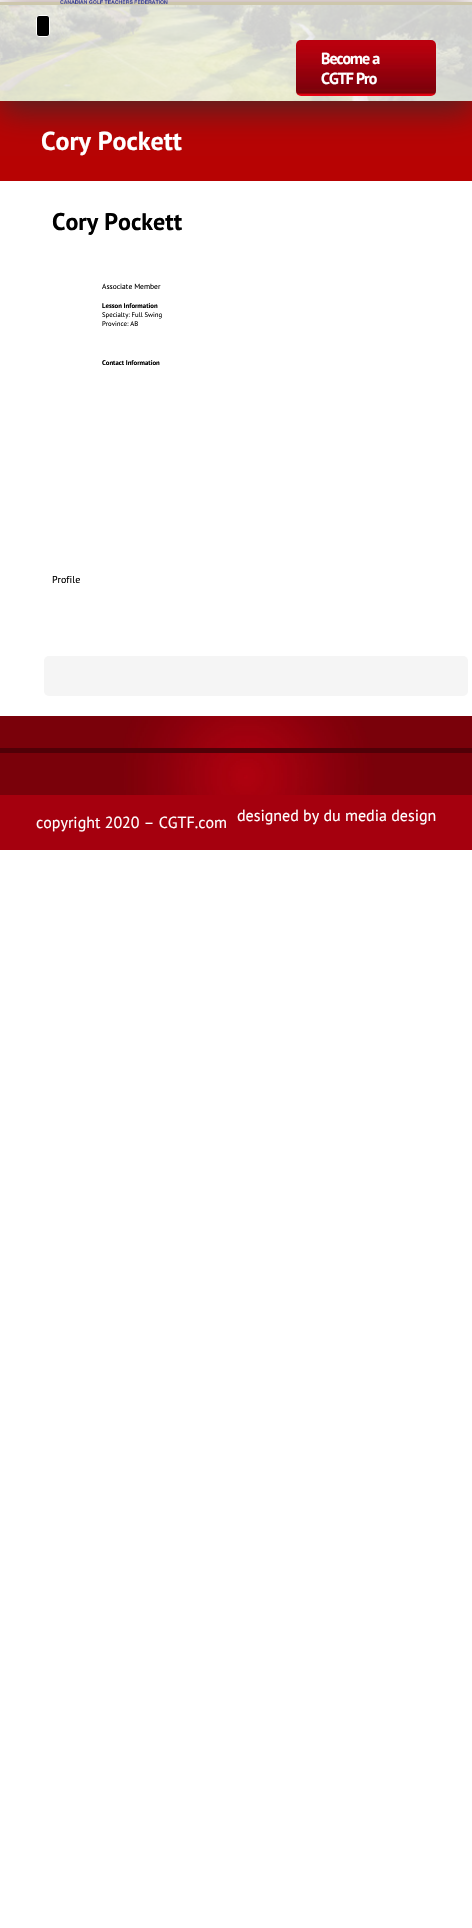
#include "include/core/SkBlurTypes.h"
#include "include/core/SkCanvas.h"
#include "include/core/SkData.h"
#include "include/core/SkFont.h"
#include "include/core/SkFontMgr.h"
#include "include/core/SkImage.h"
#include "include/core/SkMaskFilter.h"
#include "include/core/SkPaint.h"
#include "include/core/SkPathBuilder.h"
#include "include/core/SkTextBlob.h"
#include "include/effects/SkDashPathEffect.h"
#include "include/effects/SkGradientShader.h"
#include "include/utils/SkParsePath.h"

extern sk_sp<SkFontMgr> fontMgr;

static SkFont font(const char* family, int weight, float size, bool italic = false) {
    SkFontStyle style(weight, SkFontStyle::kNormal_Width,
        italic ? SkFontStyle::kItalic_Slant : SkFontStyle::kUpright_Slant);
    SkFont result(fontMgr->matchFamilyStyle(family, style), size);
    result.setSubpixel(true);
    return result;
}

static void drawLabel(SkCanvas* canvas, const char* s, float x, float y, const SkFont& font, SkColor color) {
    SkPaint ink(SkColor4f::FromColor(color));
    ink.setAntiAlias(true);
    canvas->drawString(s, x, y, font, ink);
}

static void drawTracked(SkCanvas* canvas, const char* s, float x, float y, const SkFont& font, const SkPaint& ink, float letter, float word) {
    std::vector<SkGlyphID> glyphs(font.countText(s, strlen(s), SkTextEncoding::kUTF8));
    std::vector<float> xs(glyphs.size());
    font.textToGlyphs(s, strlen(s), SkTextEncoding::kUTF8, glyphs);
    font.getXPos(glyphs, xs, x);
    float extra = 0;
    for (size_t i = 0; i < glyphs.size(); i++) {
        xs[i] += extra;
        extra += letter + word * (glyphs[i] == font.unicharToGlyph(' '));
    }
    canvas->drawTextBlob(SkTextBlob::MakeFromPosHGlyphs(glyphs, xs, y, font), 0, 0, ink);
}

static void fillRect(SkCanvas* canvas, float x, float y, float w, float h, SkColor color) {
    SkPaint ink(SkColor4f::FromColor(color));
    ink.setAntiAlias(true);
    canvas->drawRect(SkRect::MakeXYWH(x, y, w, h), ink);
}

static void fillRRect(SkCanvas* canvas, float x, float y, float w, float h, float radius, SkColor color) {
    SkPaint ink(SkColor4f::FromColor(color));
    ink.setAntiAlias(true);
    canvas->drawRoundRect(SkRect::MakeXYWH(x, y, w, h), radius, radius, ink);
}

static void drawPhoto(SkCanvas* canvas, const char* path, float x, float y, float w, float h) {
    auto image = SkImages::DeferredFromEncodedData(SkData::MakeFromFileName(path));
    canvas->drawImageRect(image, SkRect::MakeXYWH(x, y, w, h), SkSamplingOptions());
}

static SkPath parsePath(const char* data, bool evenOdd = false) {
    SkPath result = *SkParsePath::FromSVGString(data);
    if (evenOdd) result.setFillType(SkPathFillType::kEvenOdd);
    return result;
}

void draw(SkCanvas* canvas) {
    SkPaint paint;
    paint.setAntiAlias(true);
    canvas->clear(0xFFFFFFFF);
    drawPhoto(canvas, "assets/img1.png", 0, 5, 472, 96);
    fillRect(canvas, 0, 101, 472, 80, 0xFFB70303);
    canvas->save();
    canvas->clipPath(parsePath("M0 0H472V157H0ZM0 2H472V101H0Z", true), true);
    paint.setColor(0xFF542222);
    paint.setMaskFilter(SkMaskFilter::MakeBlur(kNormal_SkBlurStyle, 15));
    canvas->drawRect(SkRect::MakeXYWH(0, 12, 472, 99), paint);
    paint.setMaskFilter(nullptr);
    canvas->restore();
    fillRect(canvas, 0, 2, 472, 3, 0xFFCDC7AC);
    drawPhoto(canvas, "assets/img2.png", 60, 0, 108, 4);
    paint.setColor(0xFF000000);
    canvas->drawRoundRect(SkRect::MakeXYWH(36.5f, 15.5f, 13, 21), 2.5f, 2.5f, paint);
    paint.setStroke(true);
    paint.setStrokeWidth(1);
    paint.setColor(0xFFFFFFFF);
    canvas->drawRoundRect(SkRect::MakeXYWH(36.5f, 15.5f, 13, 21), 2.5f, 2.5f, paint);
    drawPhoto(canvas, "assets/img3.png", 296, 40, 140, 56);
    SkFont font1 = font("PT Sans", 700, 16);
    paint.setStroke(false);
    drawTracked(canvas, "Become a", 321, 64, font1, paint, -1, 0);
    drawTracked(canvas, "CGTF Pro", 321, 84, font1, paint, -1, 0);
    SkFont font2 = font("PT Sans", 700, 26);
    drawLabel(canvas, "Cory Pockett", 41, 150, font2, 0xFFFFFFFF);
    SkFont font3 = font("PT Sans", 700, 24);
    drawLabel(canvas, "Cory Pockett", 52, 230, font3, 0xFF000000);
    SkFont font4 = font("PT Sans", 400, 7.5f);
    drawLabel(canvas, "Associate Member", 102, 289, font4, 0xFF000000);
    SkFont font5 = font("PT Sans", 700, 6.75f);
    drawLabel(canvas, "Lesson Information", 102, 308, font5, 0xFF000000);
    SkFont font6 = font("PT Sans", 400, 6.75f);
    drawLabel(canvas, "Specialty: Full Swing", 102, 317, font6, 0xFF000000);
    drawLabel(canvas, "Province: AB", 102, 326, font6, 0xFF000000);
    drawLabel(canvas, "Contact Information", 102, 365, font5, 0xFF000000);
    SkFont font7 = font("PT Sans", 400, 10);
    drawLabel(canvas, "Profile", 52, 583, font7, 0xFF000000);
    fillRRect(canvas, 44, 656, 424, 40, 5, 0xFFF5F5F5);
    drawPhoto(canvas, "assets/img4.png", 0, 716, 472, 79);
    fillRect(canvas, 0, 748, 472, 5, 0xFF510007);
    fillRect(canvas, 0, 795, 472, 55, 0xFFA5000E);
    SkFont font8 = font("PT Sans", 400, 16);
    drawLabel(canvas, "copyright 2020 – CGTF.com", 36, 828, font8, 0xFFFFFFFF);
    drawLabel(canvas, "designed by du media design", 237, 821, font8, 0xFFFFFFFF);
}
